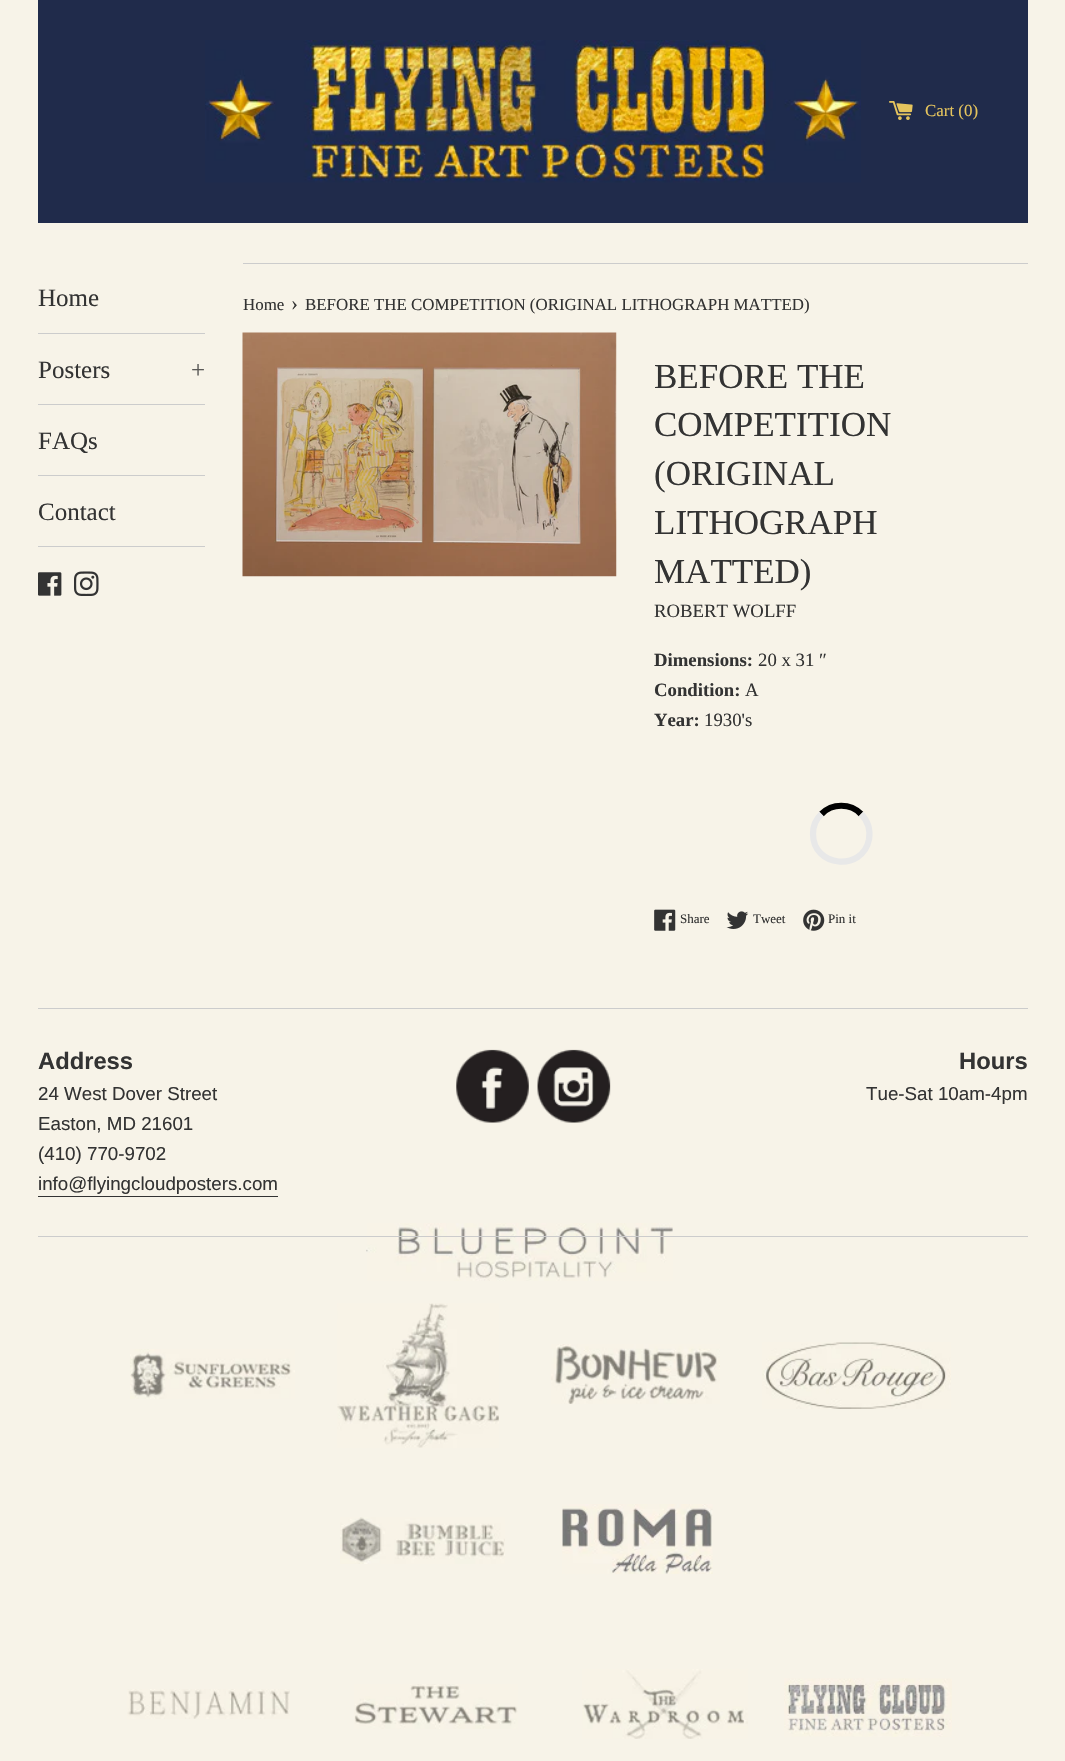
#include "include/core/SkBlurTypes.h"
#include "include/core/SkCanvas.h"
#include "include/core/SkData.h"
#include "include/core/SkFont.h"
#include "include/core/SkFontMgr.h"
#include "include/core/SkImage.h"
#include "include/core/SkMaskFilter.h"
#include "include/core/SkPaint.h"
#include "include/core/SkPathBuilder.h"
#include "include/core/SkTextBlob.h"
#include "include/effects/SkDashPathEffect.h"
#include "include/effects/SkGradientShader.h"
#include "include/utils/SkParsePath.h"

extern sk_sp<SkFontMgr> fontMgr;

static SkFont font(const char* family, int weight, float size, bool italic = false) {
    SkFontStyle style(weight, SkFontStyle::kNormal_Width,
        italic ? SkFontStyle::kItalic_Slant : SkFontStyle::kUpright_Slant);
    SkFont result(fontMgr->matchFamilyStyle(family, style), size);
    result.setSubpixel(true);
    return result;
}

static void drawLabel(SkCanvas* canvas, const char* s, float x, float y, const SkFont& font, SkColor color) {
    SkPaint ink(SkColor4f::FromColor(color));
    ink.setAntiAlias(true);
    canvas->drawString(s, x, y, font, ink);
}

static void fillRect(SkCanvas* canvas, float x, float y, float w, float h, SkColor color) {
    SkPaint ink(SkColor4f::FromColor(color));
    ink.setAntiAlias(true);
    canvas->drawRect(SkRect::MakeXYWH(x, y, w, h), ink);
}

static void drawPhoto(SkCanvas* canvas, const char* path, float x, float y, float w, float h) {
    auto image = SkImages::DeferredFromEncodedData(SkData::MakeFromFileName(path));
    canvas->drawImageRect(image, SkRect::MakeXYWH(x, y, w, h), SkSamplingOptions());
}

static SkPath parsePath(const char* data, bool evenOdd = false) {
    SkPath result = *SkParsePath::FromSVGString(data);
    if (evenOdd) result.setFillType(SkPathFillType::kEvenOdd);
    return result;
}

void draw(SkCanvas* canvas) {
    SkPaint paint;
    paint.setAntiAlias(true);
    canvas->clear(0xFFF7F3E8);
    fillRect(canvas, 38, 0, 990, 223, 0xFF202B4B);
    drawPhoto(canvas, "assets/img1.png", 205, 40, 656, 143);
    drawPhoto(canvas, "assets/img2.png", 889, 101, 24, 19);
    SkFont font1 = font("Liberation Serif", 400, 16.9f);
    drawLabel(canvas, "Cart (0)", 925, 116, font1, 0xFFE5C45D);
    fillRect(canvas, 38, 333, 167, 1, 0xFFCCCCCC);
    SkFont font2 = font("Liberation Serif", 400, 25);
    drawLabel(canvas, "Home", 38, 306, font2, 0xFF333333);
    fillRect(canvas, 38, 404, 167, 1, 0xFFCCCCCC);
    drawLabel(canvas, "Posters", 38, 378, font2, 0xFF333333);
    drawLabel(canvas, "+", 191, 378, font2, 0xFF5A5957);
    fillRect(canvas, 38, 475, 167, 1, 0xFFCCCCCC);
    drawLabel(canvas, "FAQs", 38, 449, font2, 0xFF333333);
    fillRect(canvas, 38, 546, 167, 1, 0xFFCCCCCC);
    drawLabel(canvas, "Contact", 38, 520, font2, 0xFF333333);
    drawPhoto(canvas, "assets/img3.png", 38, 572, 24, 24);
    drawPhoto(canvas, "assets/img4.png", 74, 571, 25, 25);
    fillRect(canvas, 243, 263, 785, 1, 0xFFCCCCCC);
    drawLabel(canvas, "Home", 243, 310, font1, 0xFF333333);
    SkFont font3 = font("Liberation Serif", 400, 21);
    drawLabel(canvas, "›", 291, 310, font3, 0xFF333333);
    drawLabel(canvas, "BEFORE THE COMPETITION (ORIGINAL LITHOGRAPH MATTED)", 305, 310, font1, 0xFF333333);
    drawPhoto(canvas, "assets/img5.png", 242, 332, 375, 245);
    SkFont font4 = font("Liberation Serif", 400, 35);
    drawLabel(canvas, "BEFORE THE", 654, 388, font4, 0xFF333333);
    drawLabel(canvas, "COMPETITION", 654, 436, font4, 0xFF333333);
    drawLabel(canvas, "(ORIGINAL", 654, 485, font4, 0xFF333333);
    drawLabel(canvas, "LITHOGRAPH", 654, 534, font4, 0xFF333333);
    drawLabel(canvas, "MATTED)", 654, 583, font4, 0xFF333333);
    SkFont font5 = font("Liberation Serif", 400, 18.75f);
    drawLabel(canvas, "ROBERT WOLFF", 654, 617, font5, 0xFF333333);
    SkFont font6 = font("Liberation Serif", 700, 18.75f);
    drawLabel(canvas, "Dimensions:", 654, 666, font6, 0xFF333333);
    drawLabel(canvas, "20 x 31 ″", 758, 666, font5, 0xFF333333);
    drawLabel(canvas, "Condition:", 654, 696, font6, 0xFF333333);
    drawLabel(canvas, "A", 745, 696, font5, 0xFF333333);
    drawLabel(canvas, "Year:", 654, 726, font6, 0xFF333333);
    drawLabel(canvas, "1930's", 704, 726, font5, 0xFF333333);
    paint.setStroke(true);
    paint.setStrokeWidth(6.2f);
    paint.setColor(0xFF000000);
    canvas->drawPath(parsePath("M821.5 814C832 803 850.5 803 861 814"), paint);
    paint.setColor(0xFFE8E8E8);
    canvas->drawPath(parsePath("M861 814C867.5 820.5 870.5 830 869 839.5C862.5 872 813 867.5 813 834C813 826.5 816 819 821.5 814"), paint);
    drawPhoto(canvas, "assets/img6.png", 654, 909, 22, 22);
    SkFont font7 = font("Liberation Serif", 400, 13);
    drawLabel(canvas, "Share", 680, 923, font7, 0xFF333333);
    drawPhoto(canvas, "assets/img7.png", 726, 911, 23, 18);
    drawLabel(canvas, "Tweet", 753, 923, font7, 0xFF333333);
    drawPhoto(canvas, "assets/img8.png", 803, 909, 22, 22);
    drawLabel(canvas, "Pin it", 828, 923, font7, 0xFF333333);
    fillRect(canvas, 38, 1008, 990, 1, 0xFFCCCCCC);
    SkFont font8 = font("Liberation Sans", 700, 23.75f);
    drawLabel(canvas, "Address", 38, 1069, font8, 0xFF333333);
    SkFont font9 = font("Liberation Sans", 400, 18.75f);
    drawLabel(canvas, "24 West Dover Street", 38, 1100, font9, 0xFF333333);
    drawLabel(canvas, "Easton, MD 21601", 38, 1130, font9, 0xFF333333);
    drawLabel(canvas, "(410) 770-9702", 38, 1160, font9, 0xFF333333);
    drawLabel(canvas, "info@flyingcloudposters.com", 38, 1190, font9, 0xFF333333);
    fillRect(canvas, 38, 1196, 240, 1, 0xFF333333);
    drawPhoto(canvas, "assets/img9.png", 456, 1049, 73, 74);
    drawPhoto(canvas, "assets/img10.png", 537, 1049, 74, 74);
    drawLabel(canvas, "Hours", 959, 1069, font8, 0xFF333333);
    drawLabel(canvas, "Tue-Sat 10am-4pm", 866, 1100, font9, 0xFF333333);
    drawPhoto(canvas, "assets/img11.png", 366, 1223, 307, 58);
    drawPhoto(canvas, "assets/img12.png", 130, 1349, 165, 50);
    drawPhoto(canvas, "assets/img13.png", 337, 1303, 162, 145);
    drawPhoto(canvas, "assets/img14.png", 551, 1344, 169, 60);
    drawPhoto(canvas, "assets/img15.png", 762, 1342, 189, 67);
    drawPhoto(canvas, "assets/img16.png", 340, 1517, 165, 47);
    drawPhoto(canvas, "assets/img17.png", 562, 1504, 151, 70);
    drawPhoto(canvas, "assets/img18.png", 127, 1689, 163, 30);
    drawPhoto(canvas, "assets/img19.png", 354, 1684, 164, 45);
    drawPhoto(canvas, "assets/img20.png", 582, 1669, 166, 70);
    drawPhoto(canvas, "assets/img21.png", 784, 1678, 168, 59);
    fillRect(canvas, 38, 1236, 990, 1, 0xFFCCCCCC);
}
